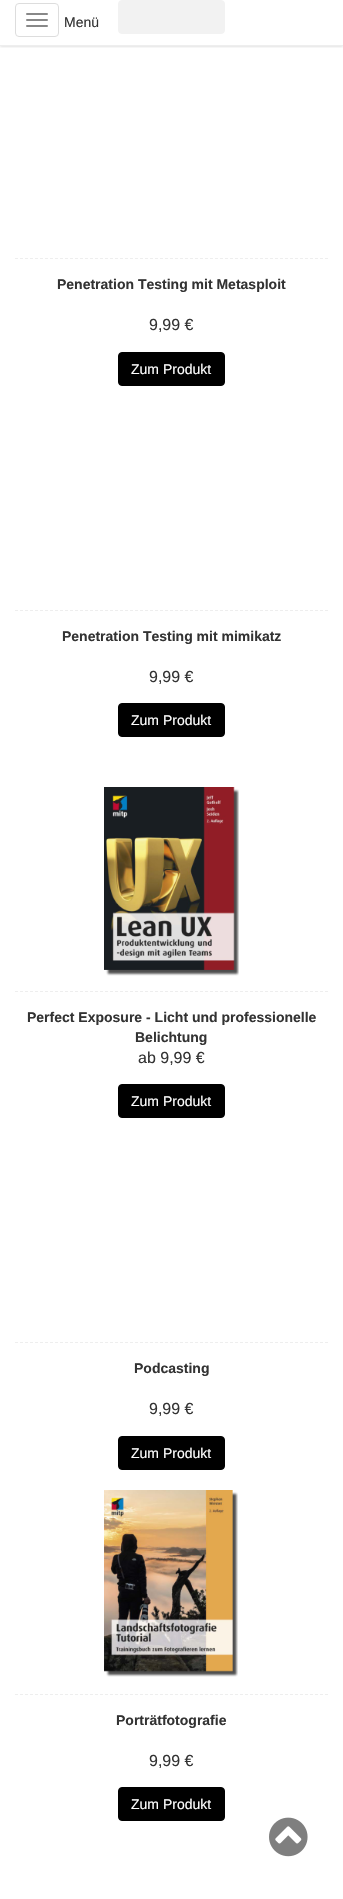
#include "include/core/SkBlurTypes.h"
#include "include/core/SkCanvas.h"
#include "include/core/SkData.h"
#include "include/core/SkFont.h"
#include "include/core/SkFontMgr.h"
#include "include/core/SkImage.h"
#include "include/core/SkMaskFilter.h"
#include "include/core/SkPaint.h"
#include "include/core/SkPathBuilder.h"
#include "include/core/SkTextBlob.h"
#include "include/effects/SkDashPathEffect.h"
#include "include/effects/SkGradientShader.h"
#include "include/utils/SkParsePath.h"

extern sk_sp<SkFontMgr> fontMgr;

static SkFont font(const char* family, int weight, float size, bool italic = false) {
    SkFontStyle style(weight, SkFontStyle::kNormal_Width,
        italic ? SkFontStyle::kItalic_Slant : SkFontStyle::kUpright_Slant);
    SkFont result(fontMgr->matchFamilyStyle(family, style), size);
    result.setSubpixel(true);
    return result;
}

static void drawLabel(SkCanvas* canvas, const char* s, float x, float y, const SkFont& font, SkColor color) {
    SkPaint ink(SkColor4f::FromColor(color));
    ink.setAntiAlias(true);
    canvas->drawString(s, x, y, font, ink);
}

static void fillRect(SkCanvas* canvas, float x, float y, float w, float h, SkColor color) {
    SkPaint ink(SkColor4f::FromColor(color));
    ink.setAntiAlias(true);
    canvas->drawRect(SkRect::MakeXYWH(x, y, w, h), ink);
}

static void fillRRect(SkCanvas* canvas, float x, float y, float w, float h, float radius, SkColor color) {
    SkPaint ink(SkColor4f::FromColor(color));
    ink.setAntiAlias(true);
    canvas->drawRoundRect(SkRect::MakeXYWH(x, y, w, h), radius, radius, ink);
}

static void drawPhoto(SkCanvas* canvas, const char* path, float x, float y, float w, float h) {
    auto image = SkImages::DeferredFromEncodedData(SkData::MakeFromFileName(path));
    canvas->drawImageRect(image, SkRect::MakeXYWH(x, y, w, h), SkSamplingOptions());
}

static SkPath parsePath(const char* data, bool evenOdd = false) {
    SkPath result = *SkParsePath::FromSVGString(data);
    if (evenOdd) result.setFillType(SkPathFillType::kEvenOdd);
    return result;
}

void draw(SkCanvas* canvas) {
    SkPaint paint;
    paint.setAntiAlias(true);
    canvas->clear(0xFFFFFFFF);
    paint.setColor(0xFFF2F2F2);
    canvas->drawRoundRect(SkRect::MakeXYWH(118.5f, 0.5f, 106, 33), 3.5f, 3.5f, paint);
    paint.setStroke(true);
    paint.setStrokeWidth(1);
    canvas->drawRoundRect(SkRect::MakeXYWH(118.5f, 0.5f, 106, 33), 3.5f, 3.5f, paint);
    canvas->save();
    canvas->clipRect(SkRect::MakeXYWH(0, 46, 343, 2));
    paint.setStroke(false);
    paint.setColor(0x33000000);
    paint.setMaskFilter(SkMaskFilter::MakeBlur(kNormal_SkBlurStyle, 1.5f));
    canvas->drawRect(SkRect::MakeXYWH(0, 0, 343, 46), paint);
    paint.setMaskFilter(nullptr);
    canvas->restore();
    fillRect(canvas, 0, 45, 343, 1, 0xFFEEEEEE);
    paint.setStroke(true);
    paint.setColor(0xFFDDDDDD);
    canvas->drawRoundRect(SkRect::MakeXYWH(15.5f, 3.5f, 43, 33), 3.5f, 3.5f, paint);
    fillRRect(canvas, 26, 13, 22, 2, 1, 0xFF888888);
    fillRRect(canvas, 26, 19, 22, 2, 1, 0xFF888888);
    fillRRect(canvas, 26, 25, 22, 2, 1, 0xFF888888);
    SkFont font1 = font("Liberation Sans", 400, 14);
    drawLabel(canvas, "Menü", 64, 27, font1, 0xFF333333);
    paint.setColor(0xFFEEEEEE);
    paint.setPathEffect(SkDashPathEffect::Make({{3, 2}}, 0));
    canvas->drawPath(parsePath("M15 258.5H328"), paint);
    paint.setPathEffect(nullptr);
    SkFont font2 = font("Liberation Sans", 700, 14);
    drawLabel(canvas, "Penetration Testing mit Metasploit", 57, 289, font2, 0xFF333333);
    SkFont font3 = font("Liberation Sans", 400, 16);
    drawLabel(canvas, "9,99 €", 149, 330, font3, 0xFF333333);
    paint.setStroke(false);
    paint.setColor(0xFF000000);
    canvas->drawRoundRect(SkRect::MakeXYWH(118.5f, 352.5f, 106, 33), 3.5f, 3.5f, paint);
    paint.setStroke(true);
    canvas->drawRoundRect(SkRect::MakeXYWH(118.5f, 352.5f, 106, 33), 3.5f, 3.5f, paint);
    drawLabel(canvas, "Zum Produkt", 131, 374, font1, 0xFFFFFFFF);
    paint.setColor(0xFFEEEEEE);
    paint.setPathEffect(SkDashPathEffect::Make({{3, 2}}, 0));
    canvas->drawPath(parsePath("M15 610.5H328"), paint);
    paint.setPathEffect(nullptr);
    drawLabel(canvas, "Penetration Testing mit mimikatz", 62, 641, font2, 0xFF333333);
    drawLabel(canvas, "9,99 €", 149, 682, font3, 0xFF333333);
    paint.setStroke(false);
    paint.setColor(0xFF000000);
    canvas->drawRoundRect(SkRect::MakeXYWH(118.5f, 703.5f, 106, 33), 3.5f, 3.5f, paint);
    paint.setStroke(true);
    canvas->drawRoundRect(SkRect::MakeXYWH(118.5f, 703.5f, 106, 33), 3.5f, 3.5f, paint);
    drawLabel(canvas, "Zum Produkt", 131, 725, font1, 0xFFFFFFFF);
    paint.setColor(0xFFEEEEEE);
    paint.setPathEffect(SkDashPathEffect::Make({{3, 2}}, 0));
    canvas->drawPath(parsePath("M15 991.5H328"), paint);
    paint.setPathEffect(nullptr);
    drawPhoto(canvas, "assets/img1.png", 104, 787, 135, 189);
    drawLabel(canvas, "Perfect Exposure - Licht und professionelle", 27, 1022, font2, 0xFF333333);
    drawLabel(canvas, "Belichtung", 135, 1042, font2, 0xFF333333);
    drawLabel(canvas, "ab 9,99 €", 138, 1063, font3, 0xFF333333);
    paint.setStroke(false);
    paint.setColor(0xFF000000);
    canvas->drawRoundRect(SkRect::MakeXYWH(118.5f, 1084.5f, 106, 33), 3.5f, 3.5f, paint);
    paint.setStroke(true);
    canvas->drawRoundRect(SkRect::MakeXYWH(118.5f, 1084.5f, 106, 33), 3.5f, 3.5f, paint);
    drawLabel(canvas, "Zum Produkt", 131, 1106, font1, 0xFFFFFFFF);
    paint.setColor(0xFFEEEEEE);
    paint.setPathEffect(SkDashPathEffect::Make({{3, 2}}, 0));
    canvas->drawPath(parsePath("M15 1342.5H328"), paint);
    paint.setPathEffect(nullptr);
    drawLabel(canvas, "Podcasting", 134, 1373, font2, 0xFF333333);
    drawLabel(canvas, "9,99 €", 149, 1414, font3, 0xFF333333);
    paint.setStroke(false);
    paint.setColor(0xFF000000);
    canvas->drawRoundRect(SkRect::MakeXYWH(118.5f, 1436.5f, 106, 33), 3.5f, 3.5f, paint);
    paint.setStroke(true);
    canvas->drawRoundRect(SkRect::MakeXYWH(118.5f, 1436.5f, 106, 33), 3.5f, 3.5f, paint);
    drawLabel(canvas, "Zum Produkt", 131, 1458, font1, 0xFFFFFFFF);
    paint.setColor(0xFFEEEEEE);
    paint.setPathEffect(SkDashPathEffect::Make({{3, 2}}, 0));
    canvas->drawPath(parsePath("M15 1694.5H328"), paint);
    paint.setPathEffect(nullptr);
    drawPhoto(canvas, "assets/img2.png", 104, 1490, 134, 187);
    drawLabel(canvas, "Porträtfotografie", 116, 1725, font2, 0xFF333333);
    drawLabel(canvas, "9,99 €", 149, 1766, font3, 0xFF333333);
    paint.setStroke(false);
    paint.setColor(0xFF000000);
    canvas->drawRoundRect(SkRect::MakeXYWH(118.5f, 1787.5f, 106, 33), 3.5f, 3.5f, paint);
    paint.setStroke(true);
    canvas->drawRoundRect(SkRect::MakeXYWH(118.5f, 1787.5f, 106, 33), 3.5f, 3.5f, paint);
    drawLabel(canvas, "Zum Produkt", 131, 1809, font1, 0xFFFFFFFF);
    drawPhoto(canvas, "assets/img3.png", 269, 1817, 39, 40);
}
